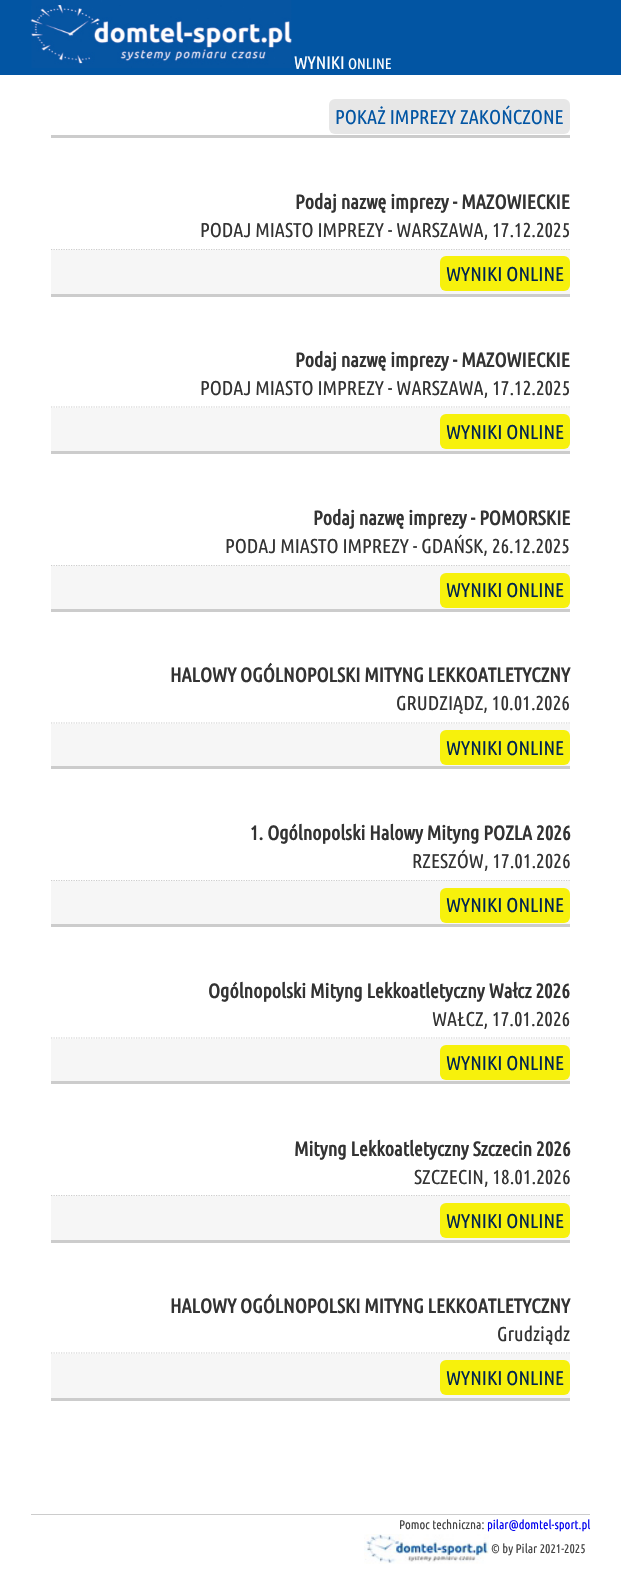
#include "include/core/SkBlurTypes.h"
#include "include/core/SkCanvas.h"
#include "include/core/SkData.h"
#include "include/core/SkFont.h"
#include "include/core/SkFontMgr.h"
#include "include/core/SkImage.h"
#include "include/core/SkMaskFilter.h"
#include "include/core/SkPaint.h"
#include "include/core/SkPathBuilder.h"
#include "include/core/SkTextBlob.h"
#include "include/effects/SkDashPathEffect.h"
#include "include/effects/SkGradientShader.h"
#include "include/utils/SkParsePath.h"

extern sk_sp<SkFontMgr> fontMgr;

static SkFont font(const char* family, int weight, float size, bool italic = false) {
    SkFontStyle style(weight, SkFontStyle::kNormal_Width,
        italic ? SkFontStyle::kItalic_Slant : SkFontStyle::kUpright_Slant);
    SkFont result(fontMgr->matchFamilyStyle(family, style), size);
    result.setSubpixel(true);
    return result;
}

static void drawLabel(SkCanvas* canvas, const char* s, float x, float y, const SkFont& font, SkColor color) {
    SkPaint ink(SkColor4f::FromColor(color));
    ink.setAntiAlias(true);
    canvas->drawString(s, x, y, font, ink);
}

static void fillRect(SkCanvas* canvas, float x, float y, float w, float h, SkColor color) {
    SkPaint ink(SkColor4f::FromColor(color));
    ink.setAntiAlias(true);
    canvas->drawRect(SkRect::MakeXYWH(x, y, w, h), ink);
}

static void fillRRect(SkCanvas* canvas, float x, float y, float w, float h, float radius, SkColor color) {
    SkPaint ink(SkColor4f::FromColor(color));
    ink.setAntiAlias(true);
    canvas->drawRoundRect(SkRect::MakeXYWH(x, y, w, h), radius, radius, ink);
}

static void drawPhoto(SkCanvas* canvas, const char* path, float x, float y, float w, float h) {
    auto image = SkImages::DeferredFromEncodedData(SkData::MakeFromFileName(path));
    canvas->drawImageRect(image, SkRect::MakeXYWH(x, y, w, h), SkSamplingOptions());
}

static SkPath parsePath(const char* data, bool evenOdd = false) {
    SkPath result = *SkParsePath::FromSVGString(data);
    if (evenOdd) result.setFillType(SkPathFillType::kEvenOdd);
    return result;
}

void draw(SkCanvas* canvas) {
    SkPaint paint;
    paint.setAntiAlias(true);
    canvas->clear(0xFFFFFFFF);
    fillRect(canvas, 0, 0, 621, 75, 0xFF0255A3);
    drawPhoto(canvas, "assets/img1.png", 30, 0, 262, 68);
    SkFont font1 = font("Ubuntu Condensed", 400, 18);
    drawLabel(canvas, "WYNIKI", 294, 69, font1, 0xFFFFFFFF);
    SkFont font2 = font("Ubuntu Condensed", 400, 15);
    drawLabel(canvas, "ONLINE", 348, 69, font2, 0xFFFFFFFF);
    fillRect(canvas, 51, 135, 519, 3, 0xFFCCCCCC);
    fillRRect(canvas, 329, 99, 241, 35, 6, 0xFFE7E7E7);
    SkFont font3 = font("Ubuntu Condensed", 400, 20);
    drawLabel(canvas, "POKAŻ IMPREZY ZAKOŃCZONE", 335, 124, font3, 0xFF0255A3);
    paint.setStroke(true);
    paint.setStrokeWidth(1.2f);
    paint.setColor(0xFFCCCCCC);
    paint.setPathEffect(SkDashPathEffect::Make({{1.25f, 1.25f}}, 0));
    canvas->drawPath(parsePath("M51 249.5H570"), paint);
    paint.setPathEffect(nullptr);
    SkFont font4 = font("Ubuntu Condensed", 700, 20);
    drawLabel(canvas, "Podaj nazwę imprezy - MAZOWIECKIE", 295, 209, font4, 0xFF333333);
    drawLabel(canvas, "PODAJ MIASTO IMPREZY - WARSZAWA, 17.12.2025", 200, 237, font3, 0xFF333333);
    fillRect(canvas, 51, 250, 519, 44, 0xFFF6F6F6);
    fillRect(canvas, 51, 294, 519, 3, 0xFFCCCCCC);
    fillRRect(canvas, 440, 256, 130, 35, 6, 0xFFF7F10C);
    drawLabel(canvas, "WYNIKI ONLINE", 446, 281, font3, 0xFF002450);
    paint.setPathEffect(SkDashPathEffect::Make({{1.25f, 1.25f}}, 0));
    canvas->drawPath(parsePath("M51 407H570"), paint);
    paint.setPathEffect(nullptr);
    drawLabel(canvas, "Podaj nazwę imprezy - MAZOWIECKIE", 295, 367, font4, 0xFF333333);
    drawLabel(canvas, "PODAJ MIASTO IMPREZY - WARSZAWA, 17.12.2025", 200, 395, font3, 0xFF333333);
    fillRect(canvas, 51, 408, 519, 43, 0xFFF6F6F6);
    fillRect(canvas, 51, 451, 519, 3, 0xFFCCCCCC);
    fillRRect(canvas, 440, 414, 130, 35, 6, 0xFFF7F10C);
    drawLabel(canvas, "WYNIKI ONLINE", 446, 439, font3, 0xFF002450);
    paint.setPathEffect(SkDashPathEffect::Make({{1.25f, 1.25f}}, 0));
    canvas->drawPath(parsePath("M51 565.5H570"), paint);
    paint.setPathEffect(nullptr);
    drawLabel(canvas, "Podaj nazwę imprezy - POMORSKIE", 313, 525, font4, 0xFF333333);
    drawLabel(canvas, "PODAJ MIASTO IMPREZY - GDAŃSK, 26.12.2025", 225, 553, font3, 0xFF333333);
    fillRect(canvas, 51, 566, 519, 43, 0xFFF6F6F6);
    fillRect(canvas, 51, 609, 519, 3, 0xFFCCCCCC);
    fillRRect(canvas, 440, 573, 130, 35, 6, 0xFFF7F10C);
    drawLabel(canvas, "WYNIKI ONLINE", 446, 597, font3, 0xFF002450);
    paint.setPathEffect(SkDashPathEffect::Make({{1.25f, 1.25f}}, 0));
    canvas->drawPath(parsePath("M51 723H570"), paint);
    paint.setPathEffect(nullptr);
    drawLabel(canvas, "HALOWY OGÓLNOPOLSKI MITYNG LEKKOATLETYCZNY", 170, 682, font4, 0xFF333333);
    drawLabel(canvas, "GRUDZIĄDZ, 10.01.2026", 396, 710, font3, 0xFF333333);
    fillRect(canvas, 51, 724, 519, 42, 0xFFF6F6F6);
    fillRect(canvas, 51, 766, 519, 3, 0xFFCCCCCC);
    fillRRect(canvas, 440, 730, 130, 35, 6, 0xFFF7F10C);
    drawLabel(canvas, "WYNIKI ONLINE", 446, 755, font3, 0xFF002450);
    paint.setPathEffect(SkDashPathEffect::Make({{1.25f, 1.25f}}, 0));
    canvas->drawPath(parsePath("M51 880.5H570"), paint);
    paint.setPathEffect(nullptr);
    drawLabel(canvas, "1. Ogólnopolski Halowy Mityng POZLA 2026", 250, 840, font4, 0xFF333333);
    drawLabel(canvas, "RZESZÓW, 17.01.2026", 412, 868, font3, 0xFF333333);
    fillRect(canvas, 51, 881, 519, 43, 0xFFF6F6F6);
    fillRect(canvas, 51, 924, 519, 3, 0xFFCCCCCC);
    fillRRect(canvas, 440, 888, 130, 35, 6, 0xFFF7F10C);
    drawLabel(canvas, "WYNIKI ONLINE", 446, 912, font3, 0xFF002450);
    paint.setPathEffect(SkDashPathEffect::Make({{1.25f, 1.25f}}, 0));
    canvas->drawPath(parsePath("M51 1038H570"), paint);
    paint.setPathEffect(nullptr);
    drawLabel(canvas, "Ogólnopolski Mityng Lekkoatletyczny Wałcz 2026", 208, 998, font4, 0xFF333333);
    drawLabel(canvas, "WAŁCZ, 17.01.2026", 432, 1026, font3, 0xFF333333);
    fillRect(canvas, 51, 1039, 519, 42, 0xFFF6F6F6);
    fillRect(canvas, 51, 1081, 519, 3, 0xFFCCCCCC);
    fillRRect(canvas, 440, 1045, 130, 35, 6, 0xFFF7F10C);
    drawLabel(canvas, "WYNIKI ONLINE", 446, 1070, font3, 0xFF002450);
    paint.setPathEffect(SkDashPathEffect::Make({{1.25f, 1.25f}}, 0));
    canvas->drawPath(parsePath("M51 1195.5H570"), paint);
    paint.setPathEffect(nullptr);
    drawLabel(canvas, "Mityng Lekkoatletyczny Szczecin 2026", 294, 1156, font4, 0xFF333333);
    drawLabel(canvas, "SZCZECIN, 18.01.2026", 414, 1184, font3, 0xFF333333);
    fillRect(canvas, 51, 1196, 519, 44, 0xFFF6F6F6);
    fillRect(canvas, 51, 1240, 519, 3, 0xFFCCCCCC);
    fillRRect(canvas, 440, 1203, 130, 35, 6, 0xFFF7F10C);
    drawLabel(canvas, "WYNIKI ONLINE", 446, 1228, font3, 0xFF002450);
    paint.setPathEffect(SkDashPathEffect::Make({{1.25f, 1.25f}}, 0));
    canvas->drawPath(parsePath("M51 1353H570"), paint);
    paint.setPathEffect(nullptr);
    drawLabel(canvas, "HALOWY OGÓLNOPOLSKI MITYNG LEKKOATLETYCZNY", 170, 1313, font4, 0xFF333333);
    drawLabel(canvas, "Grudziądz", 497, 1341, font3, 0xFF333333);
    fillRect(canvas, 51, 1354, 519, 44, 0xFFF6F6F6);
    fillRect(canvas, 51, 1398, 519, 3, 0xFFCCCCCC);
    fillRRect(canvas, 440, 1360, 130, 35, 6, 0xFFF7F10C);
    drawLabel(canvas, "WYNIKI ONLINE", 446, 1385, font3, 0xFF002450);
    fillRect(canvas, 31, 1514, 559, 1, 0xFFCCCCCC);
    SkFont font5 = font("Ubuntu Condensed", 400, 12.5f);
    drawLabel(canvas, "Pomoc techniczna:", 399, 1529, font5, 0xFF434343);
    drawLabel(canvas, "pilar@domtel-sport.pl", 487, 1529, font5, 0xFF0000EE);
    drawPhoto(canvas, "assets/img2.png", 364, 1534, 125, 30);
    drawLabel(canvas, "© by Pilar 2021-2025", 491, 1553, font5, 0xFF434343);
}
